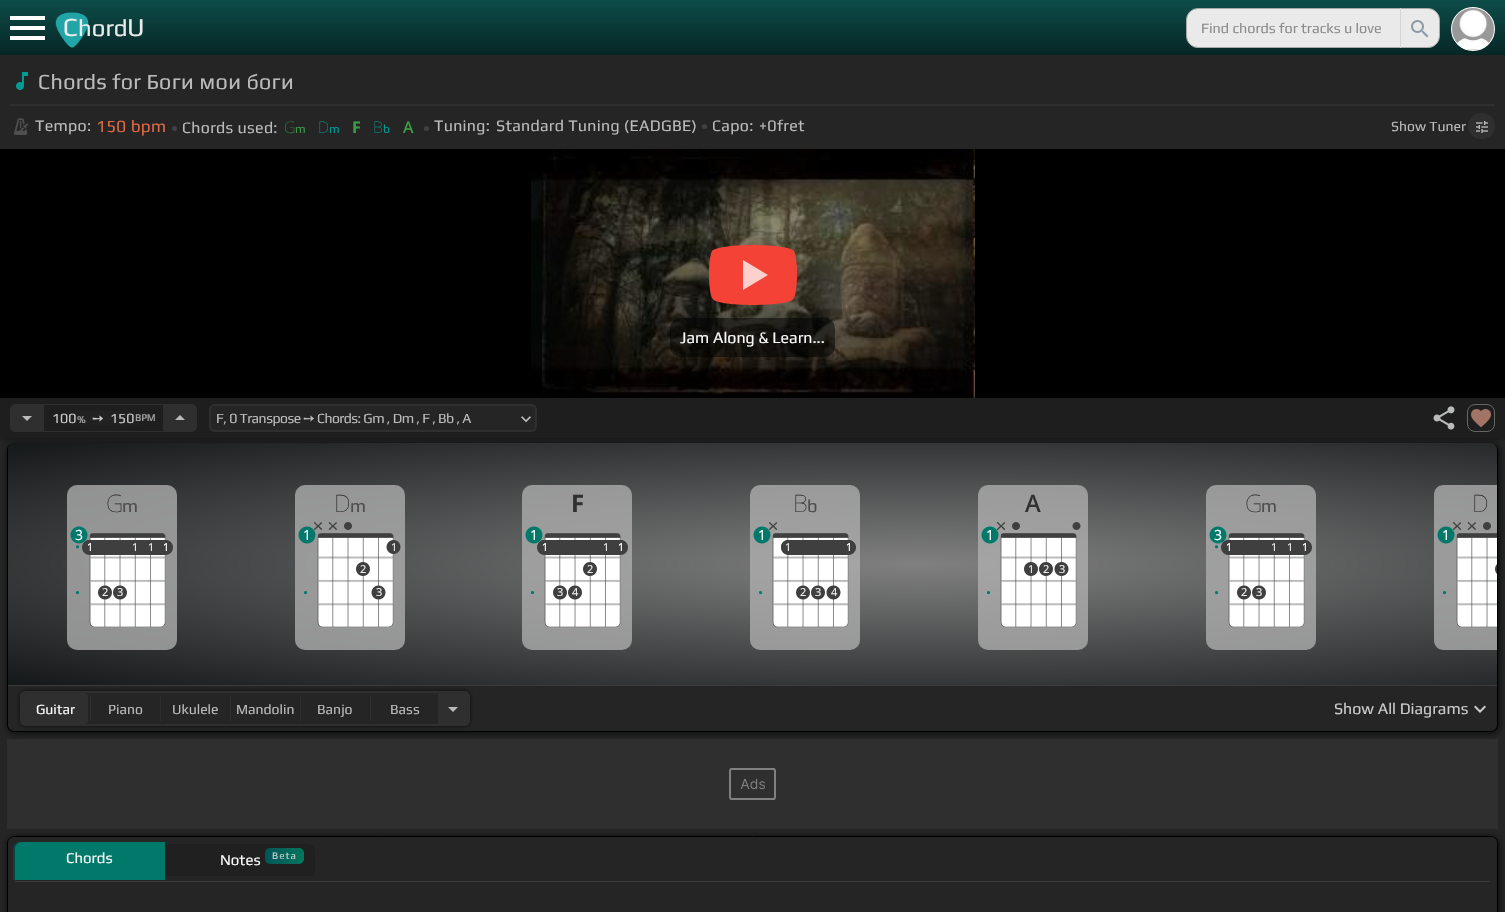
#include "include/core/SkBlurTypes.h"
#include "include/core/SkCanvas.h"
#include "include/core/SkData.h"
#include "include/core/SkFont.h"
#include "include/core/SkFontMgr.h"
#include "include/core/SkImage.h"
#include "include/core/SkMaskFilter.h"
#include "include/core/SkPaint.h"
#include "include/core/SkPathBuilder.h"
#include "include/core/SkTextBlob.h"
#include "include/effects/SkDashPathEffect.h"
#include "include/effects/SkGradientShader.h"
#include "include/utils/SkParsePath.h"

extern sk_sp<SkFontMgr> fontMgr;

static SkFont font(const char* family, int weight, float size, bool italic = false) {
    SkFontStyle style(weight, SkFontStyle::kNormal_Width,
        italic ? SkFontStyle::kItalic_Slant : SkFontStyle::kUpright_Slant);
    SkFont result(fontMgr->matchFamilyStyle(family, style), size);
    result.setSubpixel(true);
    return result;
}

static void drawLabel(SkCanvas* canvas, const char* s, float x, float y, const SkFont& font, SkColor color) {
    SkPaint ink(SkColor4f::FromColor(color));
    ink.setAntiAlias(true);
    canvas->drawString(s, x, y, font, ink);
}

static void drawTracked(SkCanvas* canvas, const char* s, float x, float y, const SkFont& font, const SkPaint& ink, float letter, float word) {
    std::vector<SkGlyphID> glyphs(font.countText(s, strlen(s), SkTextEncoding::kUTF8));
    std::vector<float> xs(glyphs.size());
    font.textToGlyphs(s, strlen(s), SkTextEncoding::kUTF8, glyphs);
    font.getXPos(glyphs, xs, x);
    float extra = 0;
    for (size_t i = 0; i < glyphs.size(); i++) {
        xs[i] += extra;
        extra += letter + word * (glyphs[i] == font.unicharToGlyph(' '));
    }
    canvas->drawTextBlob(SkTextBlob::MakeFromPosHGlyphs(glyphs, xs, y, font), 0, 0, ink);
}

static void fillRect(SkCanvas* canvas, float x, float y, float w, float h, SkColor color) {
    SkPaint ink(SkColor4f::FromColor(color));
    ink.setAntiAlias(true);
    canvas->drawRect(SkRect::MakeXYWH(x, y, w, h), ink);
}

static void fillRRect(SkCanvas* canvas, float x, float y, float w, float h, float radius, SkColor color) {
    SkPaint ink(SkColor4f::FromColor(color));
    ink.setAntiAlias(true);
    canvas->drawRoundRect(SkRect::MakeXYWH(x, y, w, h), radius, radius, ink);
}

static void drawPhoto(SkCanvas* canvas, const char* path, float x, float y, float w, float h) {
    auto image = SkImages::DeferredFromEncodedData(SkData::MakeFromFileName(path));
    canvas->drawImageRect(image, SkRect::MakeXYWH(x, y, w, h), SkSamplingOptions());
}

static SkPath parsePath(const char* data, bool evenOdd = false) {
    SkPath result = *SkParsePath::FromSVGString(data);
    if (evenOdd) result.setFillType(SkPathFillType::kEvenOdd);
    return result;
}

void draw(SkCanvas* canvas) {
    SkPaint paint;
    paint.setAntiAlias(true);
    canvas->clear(0xFF252525);
    {
        const SkColor colors[] = {0xFF0D4C49, 0xFF072625};
        const float stops[] = {0, 1};
        const SkPoint ends[] = {{753, 0}, {753, 55}};
        paint.setShader(SkGradientShader::MakeLinear(ends, colors, stops, 2, SkTileMode::kClamp));
        paint.setAlpha(255);
    }
    canvas->drawRect(SkRect::MakeXYWH(0, 0, 1505, 55), paint);
    fillRect(canvas, 10, 26, 35, 4, 0xFFFFFFFF);
    fillRect(canvas, 10, 16, 35, 4, 0xFFFFFFFF);
    fillRect(canvas, 10, 36, 35, 4, 0xFFFFFFFF);
    drawPhoto(canvas, "assets/img1.png", 55, 12, 34, 36);
    SkFont font1 = font("Play", 400, 26);
    drawLabel(canvas, "C", 63, 36, font1, 0xFFEBEBEB);
    SkFont font2 = font("Play", 400, 24);
    drawLabel(canvas, "hord", 78, 36, font2, 0xFFEBEBEB);
    drawLabel(canvas, "U", 127, 36, font1, 0xFFEBEBEB);
    paint.setShader(nullptr);
    paint.setColor(0xFFEAEAEA);
    canvas->drawRoundRect(SkRect::MakeXYWH(1186.5f, 8.5f, 253, 39), 11.5f, 11.5f, paint);
    paint.setStroke(true);
    paint.setStrokeWidth(1);
    paint.setColor(0xFFA7A7A7);
    canvas->drawRoundRect(SkRect::MakeXYWH(1186.5f, 8.5f, 253, 39), 11.5f, 11.5f, paint);
    SkFont font3 = font("Play", 400, 14.4f);
    drawLabel(canvas, "Find chords for tracks u love", 1201, 33, font3, 0xFF8C8C8C);
    fillRect(canvas, 1400, 8, 1, 40, 0xFFD5D5D5);
    drawPhoto(canvas, "assets/img2.png", 1411, 20, 18, 18);
    drawPhoto(canvas, "assets/img3.png", 1452, 8, 42, 42);
    paint.setColor(0xFFFFFFFF);
    canvas->drawCircle(1473, 29, 21.5f, paint);
    drawPhoto(canvas, "assets/img4.png", 16, 72, 12, 18);
    SkFont font4 = font("Play", 400, 21.6f);
    paint.setStroke(false);
    paint.setColor(0xFFBBBBBB);
    drawTracked(canvas, "Chords for Боги мои боги", 38, 89, font4, paint, 0.3f, 0);
    fillRect(canvas, 10, 104, 1485, 2, 0xFF2F2F2F);
    drawPhoto(canvas, "assets/img5.png", 14, 118, 15, 17);
    SkFont font5 = font("Play", 400, 16);
    drawTracked(canvas, "Tempo:", 35, 131, font5, paint, 0.3f, 0);
    SkFont font6 = font("Play", 400, 17);
    paint.setColor(0xFFDE6944);
    drawTracked(canvas, "150 bpm", 96, 132, font6, paint, 0.3f, 0);
    paint.setColor(0xFF404040);
    canvas->drawCircle(174.5f, 128.5f, 2.5f, paint);
    paint.setColor(0xFFBBBBBB);
    drawTracked(canvas, "Chords used:", 182, 133, font5, paint, 0.3f, 0);
    SkFont font7 = font("Noto Sans", 100, 16);
    paint.setColor(0xFF3B9E46);
    drawTracked(canvas, "G", 284, 133, font7, paint, 0.3f, 0);
    SkFont font8 = font("Play", 400, 12);
    drawTracked(canvas, "m", 295, 133, font8, paint, 0.3f, 0);
    paint.setColor(0xFF019C91);
    drawTracked(canvas, "D", 318, 133, font7, paint, 0.3f, 0);
    drawTracked(canvas, "m", 329, 133, font8, paint, 0.3f, 0);
    SkFont font9 = font("Noto Sans", 700, 16);
    paint.setColor(0xFF3B9E46);
    drawTracked(canvas, "F", 352, 133, font9, paint, 0.3f, 0);
    paint.setColor(0xFF019C91);
    drawTracked(canvas, "B", 373, 133, font7, paint, 0.3f, 0);
    drawTracked(canvas, "b", 383, 133, font8, paint, 0.3f, 0);
    SkFont font10 = font("Noto Sans", 500, 16);
    paint.setColor(0xFF3B9E46);
    drawTracked(canvas, "A", 403, 133, font10, paint, 0.3f, 0);
    paint.setColor(0xFF404040);
    canvas->drawCircle(426.5f, 128.5f, 2.5f, paint);
    paint.setColor(0xFFBBBBBB);
    drawTracked(canvas, "Tuning:", 434, 131, font5, paint, 0.3f, 0);
    drawTracked(canvas, "Standard Tuning (EADGBE)", 496, 131, font5, paint, 0.3f, 0);
    paint.setColor(0xFF404040);
    canvas->drawCircle(704.5f, 126.5f, 2.5f, paint);
    paint.setColor(0xFFBBBBBB);
    drawTracked(canvas, "Capo:", 712, 131, font5, paint, 0.3f, 0);
    drawTracked(canvas, "+0fret", 759, 131, font5, paint, 0.3f, 0);
    SkFont font11 = font("Play", 400, 14);
    drawLabel(canvas, "Show Tuner", 1391, 131, font11, 0xFFBBBBBB);
    fillRRect(canvas, 1468, 113, 27, 26, 13, 0xFF2F2F2F);
    drawPhoto(canvas, "assets/img6.png", 1476, 121, 12, 12);
    paint.setColor(0xFF050708);
    paint.setMaskFilter(SkMaskFilter::MakeBlur(kNormal_SkBlurStyle, 3.5f));
    canvas->drawRect(SkRect::MakeXYWH(-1, 397, 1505, 40), paint);
    paint.setMaskFilter(nullptr);
    fillRect(canvas, 0, 149, 1505, 249, 0xFF000000);
    drawPhoto(canvas, "assets/img7.png", 531, 149, 444, 249);
    fillRect(canvas, 531, 149, 444, 249, 0x66000000);
    paint.setColor(0xFFF44336);
    canvas->drawPath(parsePath("M753 245C775 245 793 248 793 251V299C793 302 775 305 753 305C731 305 713 302 713 299V251C713 248 731 245 753 245Z"), paint);
    canvas->drawPath(parsePath("M713 250H793C795 250 797 261 797 274C797 288 795 299 793 299H713C711 299 709 288 709 274C709 261 711 250 713 250Z"), paint);
    paint.setColor(0xFFFCD0CD);
    canvas->drawPath(parsePath("M743 290V260L768 275Z"), paint);
    fillRRect(canvas, 670, 318, 165, 39, 10, 0x80000000);
    drawLabel(canvas, "Jam Along & Learn...", 680, 343, font5, 0xFFFAFAFA);
    fillRect(canvas, 0, 398, 1505, 40, 0xFF1E1E1E);
    paint.setColor(0xFF2F2F2F);
    canvas->drawPath(parsePath("M16 404H44V432H16C12.5 432 10 429.5 10 426V410C10 406.5 12.5 404 16 404Z"), paint);
    paint.setColor(0xFFBABBBB);
    canvas->drawPath(parsePath("M22 416L27 421L32 416Z"), paint);
    {
        const SkColor colors[] = {0xFF242424, 0xFF1C1C1C};
        const float stops[] = {0, 1};
        SkMatrix m = SkMatrix::Translate(104, 418).preScale(84, 18);
        paint.setShader(SkGradientShader::MakeRadial({0, 0}, 1, colors, stops, 2, SkTileMode::kClamp, 0, &m));
        paint.setAlpha(255);
    }
    canvas->drawRect(SkRect::MakeXYWH(67, 410, 74, 16), paint);
    fillRect(canvas, 44, 404, 119, 1, 0xFF2F2F2F);
    fillRect(canvas, 44, 431, 119, 1, 0xFF2F2F2F);
    drawLabel(canvas, "100", 52, 423, font11, 0xFFCACACA);
    SkFont font12 = font("Play", 700, 10);
    drawLabel(canvas, "%", 77, 423, font12, 0xFF9F9F9F);
    SkFont font13 = font("DejaVu Sans", 400, 14);
    drawLabel(canvas, "➙", 92, 423, font13, 0xFFCACACA);
    drawLabel(canvas, "150", 110, 423, font11, 0xFFCACACA);
    drawLabel(canvas, "BPM", 135, 421, font12, 0xFF9F9F9F);
    paint.setShader(nullptr);
    paint.setColor(0xFF2F2F2F);
    canvas->drawPath(parsePath("M163 404H191C194.5 404 197 406.5 197 410V426C197 429.5 194.5 432 191 432H163Z"), paint);
    paint.setColor(0xFFBABBBB);
    canvas->drawPath(parsePath("M175 420L180 415L185 420Z"), paint);
    paint.setColor(0xFF252525);
    canvas->drawRoundRect(SkRect::MakeXYWH(210, 405, 326, 26), 5, 5, paint);
    paint.setStroke(true);
    paint.setStrokeWidth(2);
    paint.setColor(0xFF2F2F2F);
    canvas->drawRoundRect(SkRect::MakeXYWH(210, 405, 326, 26), 5, 5, paint);
    paint.setStroke(false);
    paint.setColor(0xFFBBBBBB);
    drawTracked(canvas, "F, 0 Transpose", 216, 423, font11, paint, -0.5f, 0);
    drawTracked(canvas, "➙", 303, 423, font13, paint, -0.5f, 0);
    drawTracked(canvas, "Chords: Gm , Dm , F , Bb , A", 317, 423, font11, paint, -0.5f, 0);
    drawPhoto(canvas, "assets/img8.png", 521, 416, 10, 7);
    drawPhoto(canvas, "assets/img9.png", 1433, 406, 22, 24);
    paint.setStroke(true);
    paint.setStrokeWidth(1);
    paint.setColor(0xFF656565);
    canvas->drawRoundRect(SkRect::MakeXYWH(1467.5f, 404.5f, 27, 27), 7.5f, 7.5f, paint);
    drawPhoto(canvas, "assets/img10.png", 1471, 409, 20, 19);
    canvas->save();
    canvas->clipPath(parsePath("M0 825H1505V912H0ZM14 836H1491C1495 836 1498 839 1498 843V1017C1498 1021 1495 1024 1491 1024H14C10 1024 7 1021 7 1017V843C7 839 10 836 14 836Z", true), true);
    paint.setStroke(false);
    paint.setColor(0xFF050708);
    paint.setMaskFilter(SkMaskFilter::MakeBlur(kNormal_SkBlurStyle, 3.5f));
    canvas->drawRoundRect(SkRect::MakeXYWH(8, 837, 1491, 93), 7, 7, paint);
    paint.setMaskFilter(nullptr);
    canvas->restore();
    fillRect(canvas, 7, 739, 1491, 90, 0xFF2F2F2F);
    canvas->save();
    canvas->clipPath(parsePath("M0 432H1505V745H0ZM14 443H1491C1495 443 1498 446 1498 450V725C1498 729 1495 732 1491 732H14C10 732 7 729 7 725V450C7 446 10 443 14 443Z", true), true);
    paint.setMaskFilter(SkMaskFilter::MakeBlur(kNormal_SkBlurStyle, 3.5f));
    canvas->drawRoundRect(SkRect::MakeXYWH(8, 444, 1491, 289), 7, 7, paint);
    paint.setMaskFilter(nullptr);
    canvas->restore();
    paint.setColor(0xFF000000);
    canvas->drawPath(parsePath("M14 443H1491C1495 443 1498 446 1498 450V725C1498 729 1495 732 1491 732H14C10 732 7 729 7 725V450C7 446 10 443 14 443ZM14 443H1491C1494 443 1497 446 1497 450V725C1497 728 1494 731 1491 731H14C11 731 8 728 8 725V450C8 446 11 443 14 443Z", true), paint);
    canvas->save();
    canvas->clipPath(parsePath("M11 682H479V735H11ZM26 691H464C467.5 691 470 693.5 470 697V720C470 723.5 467.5 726 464 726H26C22.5 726 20 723.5 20 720V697C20 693.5 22.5 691 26 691Z", true), true);
    paint.setColor(0xFF0B0B0B);
    paint.setMaskFilter(SkMaskFilter::MakeBlur(kNormal_SkBlurStyle, 2.5f));
    canvas->drawRoundRect(SkRect::MakeXYWH(20, 691, 450, 35), 6, 6, paint);
    paint.setMaskFilter(nullptr);
    canvas->restore();
    {
        const SkColor colors[] = {0xFF808080, 0xFF151819};
        const float stops[] = {0, 1};
        SkMatrix m = SkMatrix::Translate(919, 564).preScale(1288, 171);
        paint.setShader(SkGradientShader::MakeRadial({0, 0}, 1, colors, stops, 2, SkTileMode::kClamp, 0, &m));
        paint.setAlpha(255);
    }
    canvas->drawPath(parsePath("M14 443C11 443 8 446 8 450V685H1497V450C1497 446 1494 443 1491 443Z"), paint);
    fillRect(canvas, 8, 685, 1489, 1, 0xFF3B3B3B);
    fillRRect(canvas, 67, 485, 110, 165, 10, 0xC4B0B0B0);
    SkFont font14 = font("Noto Sans", 100, 24);
    drawLabel(canvas, "G", 106, 512, font14, 0xFF313131);
    SkFont font15 = font("Play", 400, 18);
    drawLabel(canvas, "m", 122, 512, font15, 0xFF4D4D4D);
    drawPhoto(canvas, "assets/img11.png", 70, 526, 103, 102);
    SkFont font16 = font("Noto Sans", 400, 14);
    drawLabel(canvas, "3", 75, 540, font16, 0xFFFAFAFA);
    SkFont font17 = font("Noto Sans", 400, 11);
    drawLabel(canvas, "1", 87, 551, font17, 0xFFEBEBEB);
    drawLabel(canvas, "1", 87, 551, font17, 0xFFEBEBEB);
    drawLabel(canvas, "1", 132, 551, font17, 0xFFEBEBEB);
    drawLabel(canvas, "1", 148, 551, font17, 0xFFEBEBEB);
    drawLabel(canvas, "1", 163, 551, font17, 0xFFEBEBEB);
    drawLabel(canvas, "1", 163, 551, font17, 0xFFEBEBEB);
    drawLabel(canvas, "2", 102, 596, font17, 0xFFEBEBEB);
    drawLabel(canvas, "3", 117, 596, font17, 0xFFEBEBEB);
    fillRRect(canvas, 295, 485, 110, 165, 10, 0xC4B0B0B0);
    drawLabel(canvas, "D", 334, 512, font14, 0xFF313131);
    drawLabel(canvas, "m", 350, 512, font15, 0xFF4D4D4D);
    drawPhoto(canvas, "assets/img12.png", 298, 522, 103, 106);
    drawLabel(canvas, "1", 303, 540, font16, 0xFFFAFAFA);
    drawLabel(canvas, "1", 391, 551, font17, 0xFFEBEBEB);
    drawLabel(canvas, "2", 360, 573, font17, 0xFFEBEBEB);
    drawLabel(canvas, "3", 376, 596, font17, 0xFFEBEBEB);
    fillRRect(canvas, 522, 485, 110, 165, 10, 0xC4B0B0B0);
    SkFont font18 = font("Noto Sans", 700, 24);
    drawLabel(canvas, "F", 571, 512, font18, 0xFF313131);
    drawPhoto(canvas, "assets/img13.png", 525, 526, 103, 102);
    drawLabel(canvas, "1", 530, 540, font16, 0xFFFAFAFA);
    drawLabel(canvas, "1", 542, 551, font17, 0xFFEBEBEB);
    drawLabel(canvas, "1", 542, 551, font17, 0xFFEBEBEB);
    drawLabel(canvas, "1", 603, 551, font17, 0xFFEBEBEB);
    drawLabel(canvas, "1", 618, 551, font17, 0xFFEBEBEB);
    drawLabel(canvas, "1", 618, 551, font17, 0xFFEBEBEB);
    drawLabel(canvas, "2", 587, 573, font17, 0xFFEBEBEB);
    drawLabel(canvas, "3", 557, 596, font17, 0xFFEBEBEB);
    drawLabel(canvas, "4", 572, 596, font17, 0xFFEBEBEB);
    fillRRect(canvas, 750, 485, 110, 165, 10, 0xC4B0B0B0);
    drawLabel(canvas, "B", 793, 512, font14, 0xFF313131);
    drawLabel(canvas, "b", 807, 512, font15, 0xFF4D4D4D);
    drawPhoto(canvas, "assets/img14.png", 753, 522, 103, 106);
    drawLabel(canvas, "1", 758, 540, font16, 0xFFFAFAFA);
    drawLabel(canvas, "1", 785, 551, font17, 0xFFEBEBEB);
    drawLabel(canvas, "1", 846, 551, font17, 0xFFEBEBEB);
    drawLabel(canvas, "1", 846, 551, font17, 0xFFEBEBEB);
    drawLabel(canvas, "2", 800, 596, font17, 0xFFEBEBEB);
    drawLabel(canvas, "3", 815, 596, font17, 0xFFEBEBEB);
    drawLabel(canvas, "4", 831, 596, font17, 0xFFEBEBEB);
    fillRRect(canvas, 978, 485, 110, 165, 10, 0xC4B0B0B0);
    SkFont font19 = font("Noto Sans", 500, 24);
    drawLabel(canvas, "A", 1025, 512, font19, 0xFF313131);
    drawPhoto(canvas, "assets/img15.png", 981, 522, 100, 106);
    drawLabel(canvas, "1", 986, 540, font16, 0xFFFAFAFA);
    drawLabel(canvas, "1", 1028, 573, font17, 0xFFEBEBEB);
    drawLabel(canvas, "2", 1043, 573, font17, 0xFFEBEBEB);
    drawLabel(canvas, "3", 1059, 573, font17, 0xFFEBEBEB);
    fillRRect(canvas, 1206, 485, 110, 165, 10, 0xC4B0B0B0);
    drawLabel(canvas, "G", 1245, 512, font14, 0xFF313131);
    drawLabel(canvas, "m", 1261, 512, font15, 0xFF4D4D4D);
    drawPhoto(canvas, "assets/img16.png", 1209, 526, 103, 102);
    drawLabel(canvas, "3", 1214, 540, font16, 0xFFFAFAFA);
    drawLabel(canvas, "1", 1226, 551, font17, 0xFFEBEBEB);
    drawLabel(canvas, "1", 1226, 551, font17, 0xFFEBEBEB);
    drawLabel(canvas, "1", 1271, 551, font17, 0xFFEBEBEB);
    drawLabel(canvas, "1", 1287, 551, font17, 0xFFEBEBEB);
    drawLabel(canvas, "1", 1302, 551, font17, 0xFFEBEBEB);
    drawLabel(canvas, "1", 1302, 551, font17, 0xFFEBEBEB);
    drawLabel(canvas, "2", 1241, 596, font17, 0xFFEBEBEB);
    drawLabel(canvas, "3", 1256, 596, font17, 0xFFEBEBEB);
    paint.setShader(nullptr);
    paint.setColor(0xC4B0B0B0);
    canvas->drawPath(parsePath("M1444 485H1497V650H1444C1438 650 1434 646 1434 640V495C1434 489 1438 485 1444 485Z"), paint);
    drawLabel(canvas, "D", 1472, 512, font14, 0xFF313131);
    drawPhoto(canvas, "assets/img17.png", 1437, 522, 60, 106);
    drawLabel(canvas, "1", 1442, 540, font16, 0xFFFAFAFA);
    paint.setStroke(true);
    paint.setStrokeWidth(2);
    paint.setColor(0xFF2F2F2F);
    canvas->drawRoundRect(SkRect::MakeXYWH(21, 692, 448, 33), 5, 5, paint);
    fillRRect(canvas, 22, 693, 66, 31, 4, 0xFF2F2F2F);
    drawLabel(canvas, "Guitar", 36, 714, font11, 0xFFFAFAFA);
    fillRect(canvas, 90, 696, 1, 25, 0xFF2F2F2F);
    drawLabel(canvas, "Piano", 108, 714, font11, 0xFFBBBBBB);
    fillRect(canvas, 160, 696, 1, 25, 0xFF2F2F2F);
    drawLabel(canvas, "Ukulele", 172, 714, font11, 0xFFBBBBBB);
    fillRect(canvas, 230, 696, 1, 25, 0xFF2F2F2F);
    drawLabel(canvas, "Mandolin", 236, 714, font11, 0xFFBBBBBB);
    fillRect(canvas, 300, 696, 1, 25, 0xFF2F2F2F);
    drawLabel(canvas, "Banjo", 317, 714, font11, 0xFFBBBBBB);
    fillRect(canvas, 370, 696, 1, 25, 0xFF2F2F2F);
    drawLabel(canvas, "Bass", 390, 714, font11, 0xFFBBBBBB);
    fillRect(canvas, 438, 693, 30, 31, 0xFF2F2F2F);
    paint.setStroke(false);
    paint.setColor(0xFFBABBBB);
    canvas->drawPath(parsePath("M448 707L453 712L458 707Z"), paint);
    drawLabel(canvas, "Show All Diagrams", 1334, 714, font5, 0xFFCACACA);
    drawPhoto(canvas, "assets/img18.png", 1474, 705, 12, 8);
    drawPhoto(canvas, "assets/img19.png", 729, 768, 47, 32);
    paint.setStroke(true);
    paint.setStrokeWidth(1);
    paint.setColor(0xFF000000);
    canvas->drawRoundRect(SkRect::MakeXYWH(7.5f, 836.5f, 1490, 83), 6.5f, 6.5f, paint);
    fillRect(canvas, 15, 881, 1475, 1, 0xFF3B3B3B);
    paint.setStroke(false);
    paint.setColor(0xFF0B4440);
    canvas->drawPath(parsePath("M20 842C16 842 13 845 13 849V880H15V849C15 845 18 842 22 842Z"), paint);
    paint.setColor(0xFF00796B);
    canvas->drawPath(parsePath("M22 842H165V880H15V849C15 845 18 842 22 842Z"), paint);
    SkFont font20 = font("Play", 400, 15);
    drawLabel(canvas, "Chords", 66, 863, font20, 0xFFFAFAFA);
    paint.setColor(0xFF202020);
    canvas->drawPath(parsePath("M165 844H308C312 844 315 847 315 851V876H165Z"), paint);
    drawLabel(canvas, "Notes", 220, 865, font20, 0xFFFAFAFA);
    {
        const SkColor colors[] = {0xFF005058, 0xFF037B5D};
        const float stops[] = {0, 1};
        const SkPoint ends[] = {{260, 856}, {308, 856}};
        paint.setShader(SkGradientShader::MakeLinear(ends, colors, stops, 2, SkTileMode::kClamp));
        paint.setAlpha(255);
    }
    canvas->drawRoundRect(SkRect::MakeXYWH(265, 848, 39, 16), 5, 5, paint);
    SkFont font21 = font("Play", 400, 10);
    paint.setShader(nullptr);
    paint.setColor(0xFFD0D0D0);
    drawTracked(canvas, "Beta", 272, 859, font21, paint, 1, 0);
}
